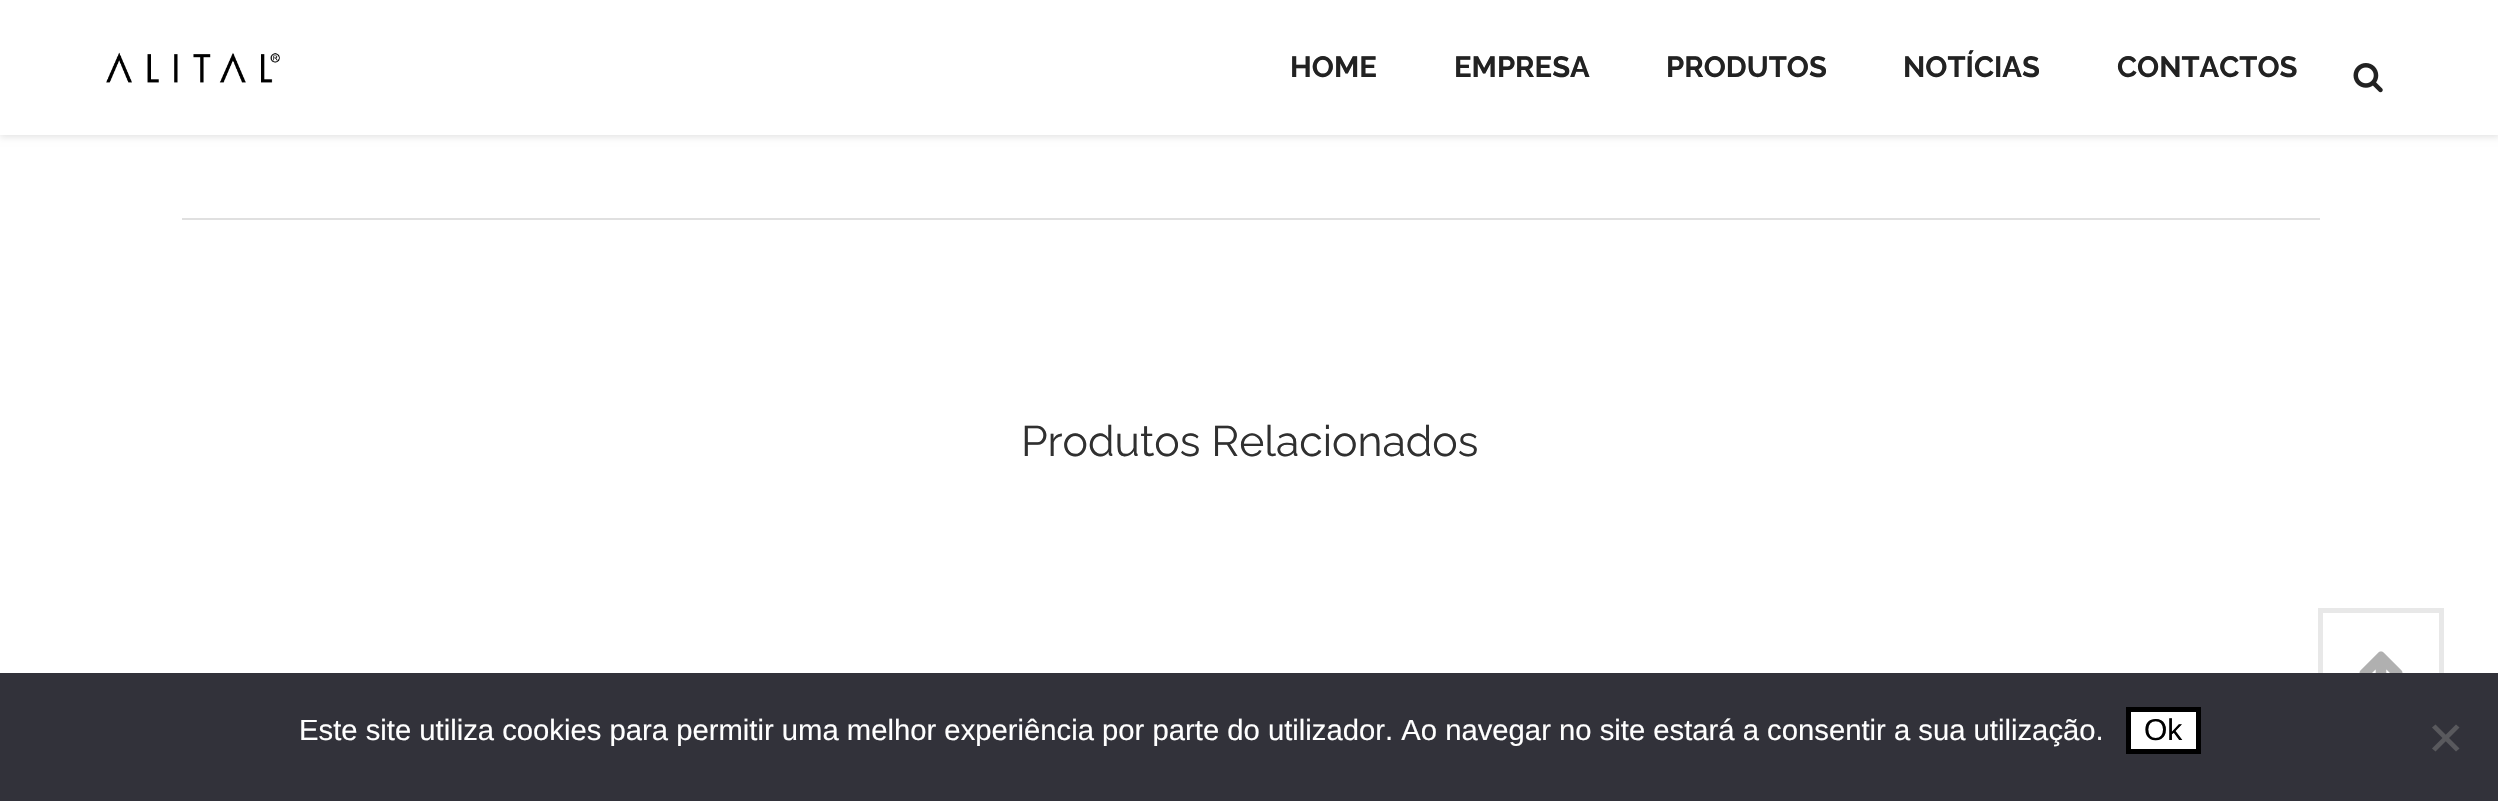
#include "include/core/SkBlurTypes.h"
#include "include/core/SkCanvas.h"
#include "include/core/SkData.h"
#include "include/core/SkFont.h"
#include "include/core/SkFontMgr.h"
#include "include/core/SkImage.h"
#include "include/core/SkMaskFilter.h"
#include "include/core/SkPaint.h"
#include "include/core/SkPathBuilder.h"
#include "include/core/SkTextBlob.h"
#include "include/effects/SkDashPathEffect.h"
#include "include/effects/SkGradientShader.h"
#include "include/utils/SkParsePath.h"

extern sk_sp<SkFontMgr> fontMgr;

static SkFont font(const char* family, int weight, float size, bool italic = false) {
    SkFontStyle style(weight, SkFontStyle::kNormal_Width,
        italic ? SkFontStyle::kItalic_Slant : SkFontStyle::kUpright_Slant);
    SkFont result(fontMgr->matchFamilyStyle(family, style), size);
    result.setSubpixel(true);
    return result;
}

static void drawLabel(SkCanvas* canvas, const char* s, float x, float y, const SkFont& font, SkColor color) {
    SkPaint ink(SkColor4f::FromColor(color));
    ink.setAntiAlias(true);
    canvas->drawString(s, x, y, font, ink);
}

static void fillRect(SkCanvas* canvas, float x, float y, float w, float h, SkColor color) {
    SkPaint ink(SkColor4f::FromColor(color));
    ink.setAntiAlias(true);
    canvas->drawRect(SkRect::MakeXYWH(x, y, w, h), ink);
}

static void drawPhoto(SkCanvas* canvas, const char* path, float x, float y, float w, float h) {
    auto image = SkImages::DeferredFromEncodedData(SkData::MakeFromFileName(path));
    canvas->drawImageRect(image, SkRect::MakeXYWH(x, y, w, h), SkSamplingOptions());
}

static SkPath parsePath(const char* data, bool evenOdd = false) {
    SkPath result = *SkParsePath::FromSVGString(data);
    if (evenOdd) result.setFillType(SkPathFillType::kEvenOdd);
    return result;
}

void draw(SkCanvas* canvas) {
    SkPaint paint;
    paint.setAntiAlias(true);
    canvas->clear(0xFFFFFFFF);
    paint.setColor(0x1C000000);
    paint.setMaskFilter(SkMaskFilter::MakeBlur(kNormal_SkBlurStyle, 3.5f));
    canvas->drawRect(SkRect::MakeXYWH(0, 2, 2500, 135), paint);
    paint.setMaskFilter(nullptr);
    fillRect(canvas, 0, 0, 2498, 135, 0xFFFFFFFF);
    drawPhoto(canvas, "assets/img1.png", 106, 52, 174, 31);
    SkFont font1 = font("Raleway", 700, 29.25f);
    drawLabel(canvas, "HOME", 1290, 77, font1, 0xFF222222);
    drawLabel(canvas, "EMPRESA", 1454, 77, font1, 0xFF222222);
    drawLabel(canvas, "PRODUTOS", 1666, 77, font1, 0xFF222222);
    drawLabel(canvas, "NOTÍCIAS", 1903, 77, font1, 0xFF222222);
    drawLabel(canvas, "CONTACTOS", 2117, 77, font1, 0xFF222222);
    drawPhoto(canvas, "assets/img2.png", 2353, 63, 30, 30);
    fillRect(canvas, 182, 218, 2138, 2, 0xFFE0E0E0);
    SkFont font2 = font("Raleway", 400, 42.75f);
    drawLabel(canvas, "Produtos Relacionados", 1021, 456, font2, 0xFF303030);
    paint.setStroke(true);
    paint.setStrokeWidth(5);
    paint.setColor(0xFFE8E8E8);
    canvas->drawRect(SkRect::MakeXYWH(2320.5f, 610.5f, 121, 121), paint);
    drawPhoto(canvas, "assets/img3.png", 2359, 651, 44, 22);
    fillRect(canvas, 0, 673, 2498, 128, 0xFF32323A);
    SkFont font3 = font("Liberation Sans", 400, 29.25f);
    drawLabel(canvas, "Este site utiliza cookies para permitir uma melhor experiência por parte do utilizador. Ao navegar no site estará a consentir a sua utilização.", 299, 740, font3, 0xFFFFFFFF);
    paint.setStroke(false);
    paint.setColor(0xFFFFFFFF);
    canvas->drawRect(SkRect::MakeXYWH(2128.5f, 709.5f, 70, 42), paint);
    paint.setStroke(true);
    paint.setColor(0xFF000000);
    canvas->drawRect(SkRect::MakeXYWH(2128.5f, 709.5f, 70, 42), paint);
    SkFont font4 = font("Liberation Sans", 400, 30);
    drawLabel(canvas, "Ok", 2144, 740, font4, 0xFF000000);
    paint.setStroke(false);
    paint.setColor(0xFF59595D);
    canvas->drawPath(parsePath("M2456 724.5L2459.5 727.5L2435.5 751.5L2432 748.5Z"), paint);
    canvas->drawPath(parsePath("M2432 727.5L2435.5 724.5L2459.5 748.5L2456 751.5Z"), paint);
}
